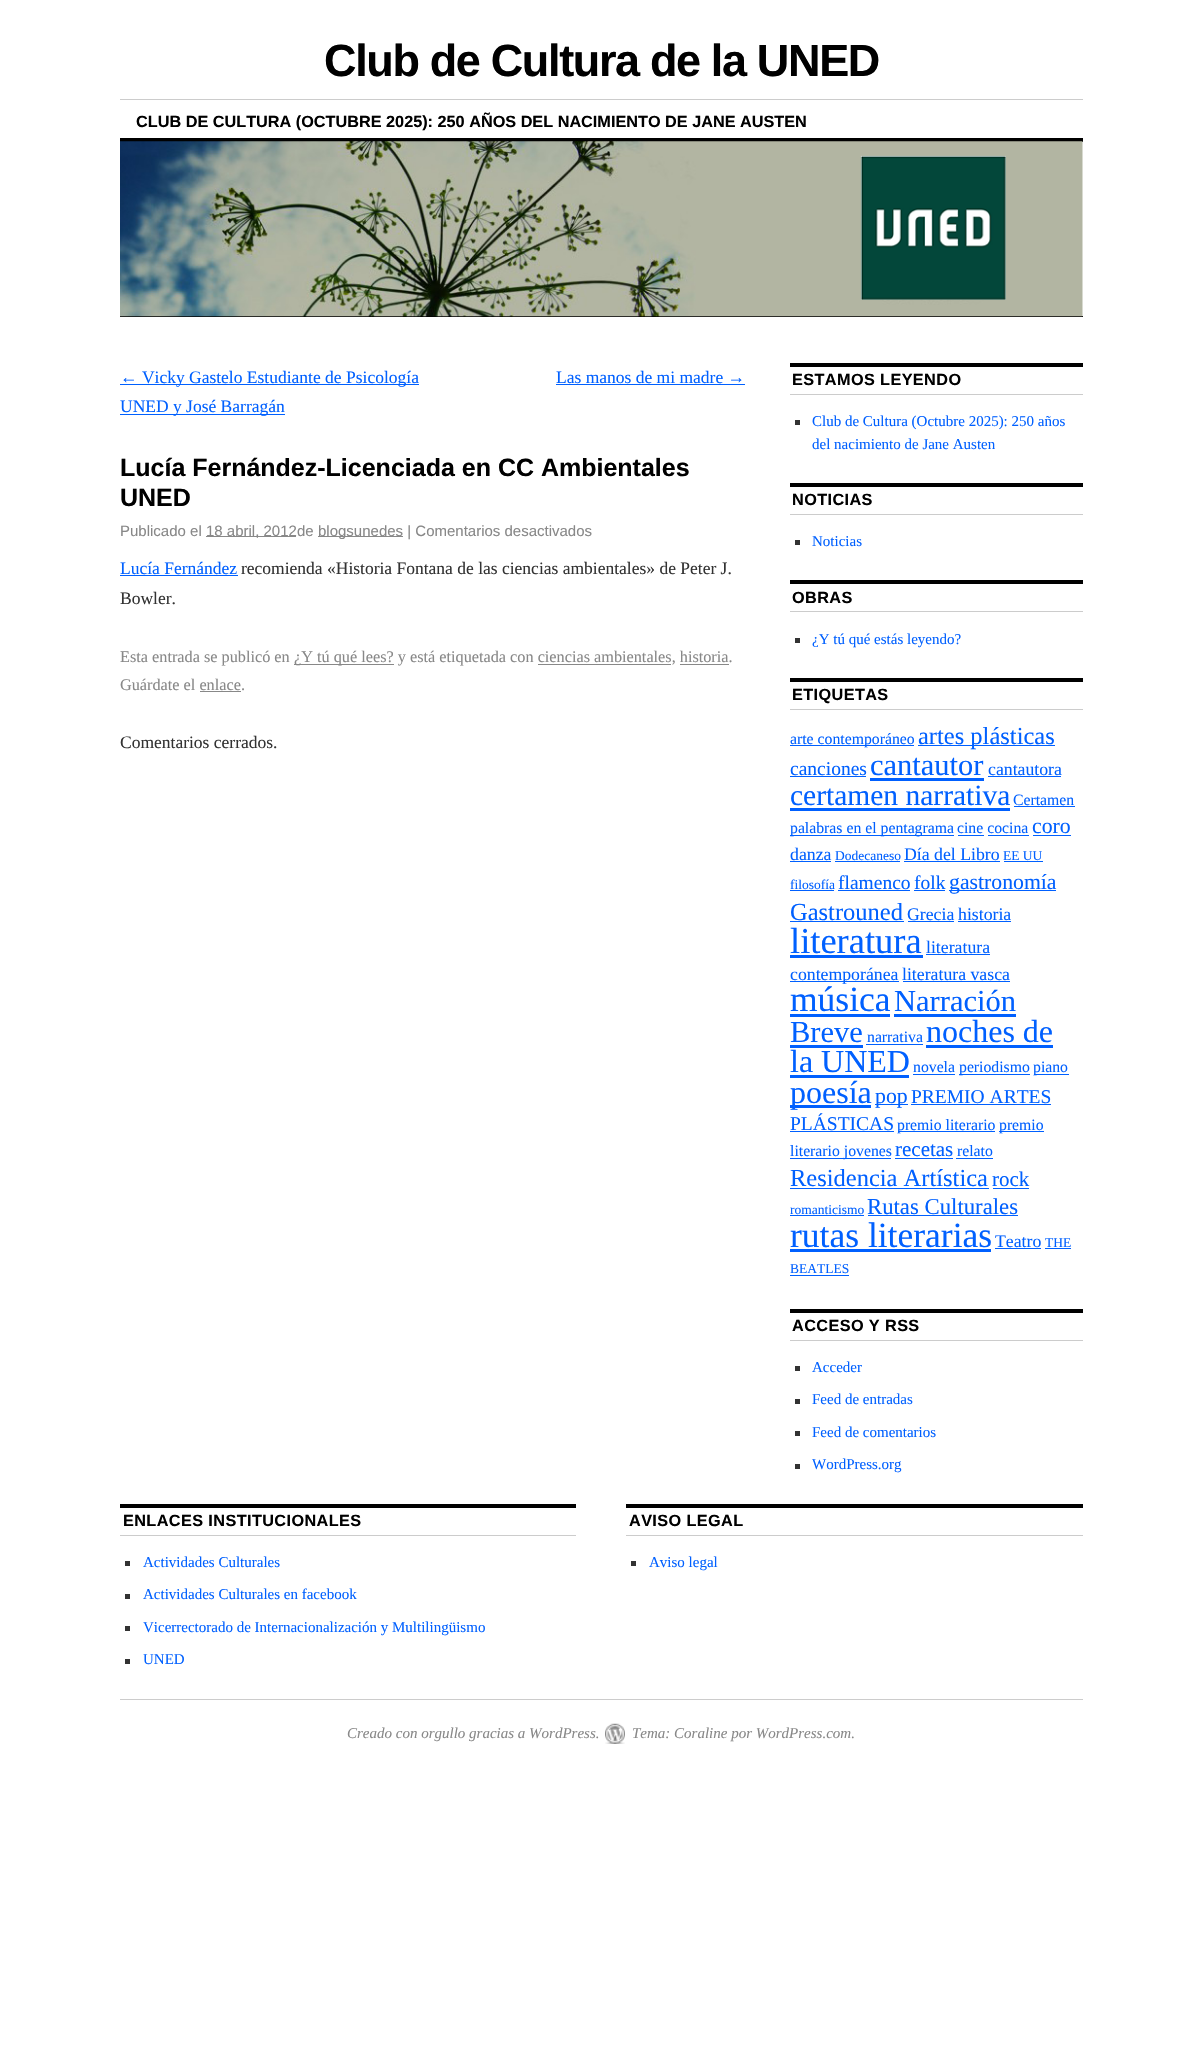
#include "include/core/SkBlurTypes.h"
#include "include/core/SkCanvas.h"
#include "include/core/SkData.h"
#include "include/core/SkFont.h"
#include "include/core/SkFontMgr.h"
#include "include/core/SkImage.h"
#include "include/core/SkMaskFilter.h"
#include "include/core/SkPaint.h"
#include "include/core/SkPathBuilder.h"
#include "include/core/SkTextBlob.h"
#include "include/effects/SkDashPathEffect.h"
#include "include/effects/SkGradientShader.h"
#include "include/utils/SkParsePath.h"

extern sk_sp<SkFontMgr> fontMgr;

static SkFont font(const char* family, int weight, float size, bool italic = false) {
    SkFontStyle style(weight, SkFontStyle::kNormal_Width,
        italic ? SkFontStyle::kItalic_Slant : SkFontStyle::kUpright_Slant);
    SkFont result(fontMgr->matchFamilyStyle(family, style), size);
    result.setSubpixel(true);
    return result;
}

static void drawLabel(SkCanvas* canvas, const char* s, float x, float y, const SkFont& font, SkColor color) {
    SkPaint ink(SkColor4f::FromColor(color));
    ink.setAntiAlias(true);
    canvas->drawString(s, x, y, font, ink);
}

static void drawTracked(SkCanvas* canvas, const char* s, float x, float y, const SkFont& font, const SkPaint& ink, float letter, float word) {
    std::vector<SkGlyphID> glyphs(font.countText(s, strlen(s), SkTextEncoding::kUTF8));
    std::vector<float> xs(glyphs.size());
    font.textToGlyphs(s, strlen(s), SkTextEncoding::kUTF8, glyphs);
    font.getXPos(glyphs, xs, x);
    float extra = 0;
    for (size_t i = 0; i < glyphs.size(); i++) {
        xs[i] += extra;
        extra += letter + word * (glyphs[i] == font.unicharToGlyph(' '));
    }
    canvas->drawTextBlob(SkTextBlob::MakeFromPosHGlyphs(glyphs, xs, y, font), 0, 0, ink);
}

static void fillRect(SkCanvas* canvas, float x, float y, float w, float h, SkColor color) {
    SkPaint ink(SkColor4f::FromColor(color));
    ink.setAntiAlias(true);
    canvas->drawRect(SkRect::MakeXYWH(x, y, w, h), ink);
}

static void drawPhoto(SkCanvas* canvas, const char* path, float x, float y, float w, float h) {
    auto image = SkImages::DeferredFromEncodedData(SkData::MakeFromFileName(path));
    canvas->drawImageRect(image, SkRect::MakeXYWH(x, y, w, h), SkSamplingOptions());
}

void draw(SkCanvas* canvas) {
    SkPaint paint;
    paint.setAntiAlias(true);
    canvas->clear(0xFFFFFFFF);
    SkFont font1 = font("Liberation Sans", 700, 45);
    paint.setColor(0xFF000000);
    drawTracked(canvas, "Club de Cultura de la UNED", 324, 76, font1, paint, -1.35f, 0);
    fillRect(canvas, 120, 99, 963, 1, 0xFFCCCCCC);
    SkFont font2 = font("Liberation Sans", 700, 16.25f);
    drawLabel(canvas, "CLUB DE CULTURA (OCTUBRE 2025): 250 AÑOS DEL NACIMIENTO DE JANE AUSTEN", 136, 127, font2, 0xFF000000);
    fillRect(canvas, 120, 138, 963, 4, 0xFF000000);
    fillRect(canvas, 120, 316, 963, 1, 0xFF000000);
    drawPhoto(canvas, "assets/img1.png", 120, 141, 963, 176);
    fillRect(canvas, 120, 384, 299, 1, 0xFF0060FF);
    SkFont font3 = font("Liberation Serif", 400, 17.5f);
    drawLabel(canvas, "← Vicky Gastelo Estudiante de Psicología", 120, 383, font3, 0xFF0060FF);
    fillRect(canvas, 120, 414, 165, 1, 0xFF0060FF);
    drawLabel(canvas, "UNED y José Barragán", 120, 412, font3, 0xFF0060FF);
    drawLabel(canvas, "Las manos de mi madre →", 556, 383, font3, 0xFF0060FF);
    fillRect(canvas, 556, 384, 189, 1, 0xFF0060FF);
    SkFont font4 = font("Liberation Sans", 700, 25);
    drawLabel(canvas, "Lucía Fernández-Licenciada en CC Ambientales", 120, 476, font4, 0xFF000000);
    drawLabel(canvas, "UNED", 120, 506, font4, 0xFF000000);
    SkFont font5 = font("Liberation Sans", 400, 15);
    drawLabel(canvas, "Publicado el", 120, 536, font5, 0xFF888888);
    fillRect(canvas, 206, 536, 90, 1, 0xFF888888);
    drawLabel(canvas, "18 abril, 2012de", 206, 536, font5, 0xFF888888);
    fillRect(canvas, 318, 536, 85, 1, 0xFF888888);
    drawLabel(canvas, "blogsunedes | Comentarios desactivados", 318, 536, font5, 0xFF888888);
    drawLabel(canvas, "Lucía Fernández", 120, 574, font3, 0xFF0060FF);
    fillRect(canvas, 120, 575, 118, 1, 0xFF0060FF);
    drawLabel(canvas, "recomienda «Historia Fontana de las ciencias ambientales» de Peter J.", 241, 574, font3, 0xFF333333);
    drawLabel(canvas, "Bowler.", 120, 604, font3, 0xFF333333);
    SkFont font6 = font("Liberation Serif", 400, 16.25f);
    drawLabel(canvas, "Esta entrada se publicó en", 120, 662, font6, 0xFF888888);
    fillRect(canvas, 294, 664, 100, 1, 0xFF888888);
    drawLabel(canvas, "¿Y tú qué lees? y está etiquetada con ciencias ambientales, historia.", 294, 662, font6, 0xFF888888);
    fillRect(canvas, 538, 664, 133, 1, 0xFF888888);
    fillRect(canvas, 680, 664, 49, 1, 0xFF888888);
    drawLabel(canvas, "Guárdate el enlace.", 120, 690, font6, 0xFF888888);
    fillRect(canvas, 200, 691, 41, 1, 0xFF888888);
    drawLabel(canvas, "Comentarios cerrados.", 120, 748, font3, 0xFF333333);
    fillRect(canvas, 790, 363, 293, 4, 0xFF000000);
    fillRect(canvas, 790, 394, 293, 1, 0xFFCCCCCC);
    drawTracked(canvas, "ESTAMOS LEYENDO", 792, 385, font2, paint, 0.4f, 0);
    fillRect(canvas, 795, 420, 5, 5, 0xFF333333);
    SkFont font7 = font("Liberation Serif", 400, 15);
    drawLabel(canvas, "Club de Cultura (Octubre 2025): 250 años", 812, 426, font7, 0xFF0060FF);
    drawLabel(canvas, "del nacimiento de Jane Austen", 812, 449, font7, 0xFF0060FF);
    fillRect(canvas, 790, 483, 293, 4, 0xFF000000);
    fillRect(canvas, 790, 514, 293, 1, 0xFFCCCCCC);
    drawTracked(canvas, "NOTICIAS", 792, 505, font2, paint, 0.4f, 0);
    fillRect(canvas, 795, 540, 5, 5, 0xFF333333);
    drawLabel(canvas, "Noticias", 812, 546, font7, 0xFF0060FF);
    fillRect(canvas, 790, 580, 293, 4, 0xFF000000);
    fillRect(canvas, 790, 611, 293, 1, 0xFFCCCCCC);
    drawTracked(canvas, "OBRAS", 792, 603, font2, paint, 0.4f, 0);
    fillRect(canvas, 795, 638, 5, 5, 0xFF333333);
    drawLabel(canvas, "¿Y tú qué estás leyendo?", 812, 644, font7, 0xFF0060FF);
    fillRect(canvas, 790, 678, 293, 4, 0xFF000000);
    fillRect(canvas, 790, 709, 293, 1, 0xFFCCCCCC);
    drawTracked(canvas, "ETIQUETAS", 792, 700, font2, paint, 0.4f, 0);
    fillRect(canvas, 790, 745, 124, 1, 0xFF0060FF);
    SkFont font8 = font("Liberation Serif", 400, 15.75f);
    drawLabel(canvas, "arte contemporáneo", 790, 744, font8, 0xFF0060FF);
    fillRect(canvas, 918, 745, 137, 1, 0xFF0060FF);
    SkFont font9 = font("Liberation Serif", 400, 24.5f);
    drawLabel(canvas, "artes plásticas", 918, 744, font9, 0xFF0060FF);
    SkFont font10 = font("Liberation Serif", 400, 19.5f);
    drawLabel(canvas, "canciones", 790, 775, font10, 0xFF0060FF);
    fillRect(canvas, 790, 776, 76, 1, 0xFF0060FF);
    SkFont font11 = font("Liberation Serif", 400, 30.5f);
    drawLabel(canvas, "cantautor", 870, 775, font11, 0xFF0060FF);
    fillRect(canvas, 870, 778, 114, 3, 0xFF0060FF);
    SkFont font12 = font("Liberation Serif", 400, 17.75f);
    drawLabel(canvas, "cantautora", 988, 775, font12, 0xFF0060FF);
    fillRect(canvas, 988, 776, 73, 1, 0xFF0060FF);
    SkFont font13 = font("Liberation Serif", 400, 29.5f);
    drawLabel(canvas, "certamen narrativa", 790, 805, font13, 0xFF0060FF);
    fillRect(canvas, 790, 808, 220, 3, 0xFF0060FF);
    drawLabel(canvas, "Certamen", 1013, 805, font8, 0xFF0060FF);
    fillRect(canvas, 1014, 806, 61, 1, 0xFF0060FF);
    fillRect(canvas, 790, 835, 164, 1, 0xFF0060FF);
    drawLabel(canvas, "palabras en el pentagrama", 790, 833, font8, 0xFF0060FF);
    drawLabel(canvas, "cine cocina", 957, 833, font8, 0xFF0060FF);
    fillRect(canvas, 958, 835, 26, 1, 0xFF0060FF);
    SkFont font14 = font("Liberation Serif", 400, 21.75f);
    drawLabel(canvas, "coro", 1032, 833, font14, 0xFF0060FF);
    fillRect(canvas, 1033, 835, 38, 1, 0xFF0060FF);
    fillRect(canvas, 988, 835, 41, 1, 0xFF0060FF);
    drawLabel(canvas, "danza", 790, 860, font12, 0xFF0060FF);
    fillRect(canvas, 790, 861, 41, 1, 0xFF0060FF);
    SkFont font15 = font("Liberation Serif", 400, 13.5f);
    drawLabel(canvas, "Dodecaneso", 835, 860, font15, 0xFF0060FF);
    fillRect(canvas, 835, 861, 65, 1, 0xFF0060FF);
    drawLabel(canvas, "Día del Libro", 904, 860, font12, 0xFF0060FF);
    fillRect(canvas, 904, 861, 96, 1, 0xFF0060FF);
    drawLabel(canvas, "EE UU", 1003, 860, font15, 0xFF0060FF);
    fillRect(canvas, 1004, 861, 39, 1, 0xFF0060FF);
    drawLabel(canvas, "filosofía", 790, 889, font15, 0xFF0060FF);
    fillRect(canvas, 790, 890, 44, 1, 0xFF0060FF);
    drawLabel(canvas, "flamenco", 838, 889, font10, 0xFF0060FF);
    fillRect(canvas, 838, 890, 72, 1, 0xFF0060FF);
    drawLabel(canvas, "folk", 914, 889, font10, 0xFF0060FF);
    fillRect(canvas, 914, 890, 31, 1, 0xFF0060FF);
    fillRect(canvas, 949, 890, 107, 1, 0xFF0060FF);
    drawLabel(canvas, "gastronomía", 949, 889, font14, 0xFF0060FF);
    drawLabel(canvas, "Gastrouned", 790, 920, font9, 0xFF0060FF);
    fillRect(canvas, 790, 921, 114, 1, 0xFF0060FF);
    drawLabel(canvas, "Grecia", 907, 920, font12, 0xFF0060FF);
    fillRect(canvas, 908, 921, 46, 1, 0xFF0060FF);
    drawLabel(canvas, "historia", 958, 920, font12, 0xFF0060FF);
    fillRect(canvas, 958, 921, 53, 1, 0xFF0060FF);
    SkFont font16 = font("Liberation Serif", 400, 36.5f);
    drawLabel(canvas, "literatura", 790, 953, font16, 0xFF0060FF);
    fillRect(canvas, 790, 955, 133, 3, 0xFF0060FF);
    drawLabel(canvas, "literatura", 926, 953, font12, 0xFF0060FF);
    fillRect(canvas, 926, 954, 64, 1, 0xFF0060FF);
    fillRect(canvas, 790, 981, 109, 1, 0xFF0060FF);
    drawLabel(canvas, "contemporánea", 790, 980, font12, 0xFF0060FF);
    drawLabel(canvas, "literatura vasca", 902, 980, font12, 0xFF0060FF);
    fillRect(canvas, 903, 981, 107, 1, 0xFF0060FF);
    SkFont font17 = font("Liberation Serif", 400, 35.5f);
    drawLabel(canvas, "música", 790, 1011, font17, 0xFF0060FF);
    fillRect(canvas, 790, 1014, 100, 3, 0xFF0060FF);
    drawLabel(canvas, "Narración", 894, 1011, font11, 0xFF0060FF);
    fillRect(canvas, 894, 1014, 122, 3, 0xFF0060FF);
    drawLabel(canvas, "Breve", 790, 1042, font11, 0xFF0060FF);
    fillRect(canvas, 790, 1045, 73, 3, 0xFF0060FF);
    drawLabel(canvas, "narrativa", 867, 1042, font8, 0xFF0060FF);
    fillRect(canvas, 866, 1044, 57, 1, 0xFF0060FF);
    SkFont font18 = font("Liberation Serif", 400, 32);
    drawLabel(canvas, "noches de", 926, 1042, font18, 0xFF0060FF);
    fillRect(canvas, 926, 1045, 127, 3, 0xFF0060FF);
    drawLabel(canvas, "la UNED", 790, 1072, font18, 0xFF0060FF);
    fillRect(canvas, 790, 1075, 119, 3, 0xFF0060FF);
    drawLabel(canvas, "novela", 913, 1072, font8, 0xFF0060FF);
    fillRect(canvas, 913, 1074, 42, 1, 0xFF0060FF);
    fillRect(canvas, 959, 1074, 71, 1, 0xFF0060FF);
    drawLabel(canvas, "periodismo", 959, 1072, font8, 0xFF0060FF);
    fillRect(canvas, 1034, 1074, 35, 1, 0xFF0060FF);
    drawLabel(canvas, "piano", 1033, 1072, font8, 0xFF0060FF);
    fillRect(canvas, 790, 1105, 81, 3, 0xFF0060FF);
    drawLabel(canvas, "poesía", 790, 1103, font18, 0xFF0060FF);
    fillRect(canvas, 875, 1104, 33, 1, 0xFF0060FF);
    drawLabel(canvas, "pop", 875, 1103, font14, 0xFF0060FF);
    drawLabel(canvas, "PREMIO ARTES", 911, 1103, font10, 0xFF0060FF);
    fillRect(canvas, 911, 1104, 140, 1, 0xFF0060FF);
    drawLabel(canvas, "PLÁSTICAS", 790, 1130, font10, 0xFF0060FF);
    fillRect(canvas, 790, 1131, 104, 1, 0xFF0060FF);
    fillRect(canvas, 898, 1131, 97, 1, 0xFF0060FF);
    drawLabel(canvas, "premio literario", 897, 1130, font8, 0xFF0060FF);
    fillRect(canvas, 999, 1131, 45, 1, 0xFF0060FF);
    drawLabel(canvas, "premio", 999, 1130, font8, 0xFF0060FF);
    fillRect(canvas, 790, 1158, 101, 1, 0xFF0060FF);
    drawLabel(canvas, "literario jovenes", 790, 1156, font8, 0xFF0060FF);
    SkFont font19 = font("Liberation Serif", 400, 21);
    drawLabel(canvas, "recetas", 895, 1156, font19, 0xFF0060FF);
    fillRect(canvas, 895, 1158, 58, 1, 0xFF0060FF);
    drawLabel(canvas, "relato", 957, 1156, font8, 0xFF0060FF);
    fillRect(canvas, 956, 1158, 37, 1, 0xFF0060FF);
    drawLabel(canvas, "Residencia Artística", 790, 1186, font9, 0xFF0060FF);
    fillRect(canvas, 790, 1188, 199, 1, 0xFF0060FF);
    drawLabel(canvas, "rock", 992, 1186, font19, 0xFF0060FF);
    fillRect(canvas, 993, 1188, 36, 1, 0xFF0060FF);
    drawLabel(canvas, "romanticismo", 790, 1214, font15, 0xFF0060FF);
    fillRect(canvas, 790, 1215, 74, 1, 0xFF0060FF);
    SkFont font20 = font("Liberation Serif", 400, 22.75f);
    drawLabel(canvas, "Rutas Culturales", 867, 1214, font20, 0xFF0060FF);
    fillRect(canvas, 868, 1215, 150, 1, 0xFF0060FF);
    drawLabel(canvas, "rutas literarias", 790, 1247, font17, 0xFF0060FF);
    fillRect(canvas, 790, 1249, 201, 3, 0xFF0060FF);
    drawLabel(canvas, "Teatro", 995, 1247, font12, 0xFF0060FF);
    fillRect(canvas, 995, 1248, 46, 1, 0xFF0060FF);
    drawLabel(canvas, "THE", 1045, 1247, font15, 0xFF0060FF);
    fillRect(canvas, 1045, 1248, 26, 1, 0xFF0060FF);
    drawLabel(canvas, "BEATLES", 790, 1273, font15, 0xFF0060FF);
    fillRect(canvas, 790, 1275, 59, 1, 0xFF0060FF);
    fillRect(canvas, 790, 1309, 293, 4, 0xFF000000);
    fillRect(canvas, 790, 1340, 293, 1, 0xFFCCCCCC);
    drawTracked(canvas, "ACCESO Y RSS", 792, 1331, font2, paint, 0.4f, 0);
    fillRect(canvas, 795, 1366, 5, 5, 0xFF333333);
    drawLabel(canvas, "Acceder", 812, 1372, font7, 0xFF0060FF);
    fillRect(canvas, 795, 1399, 5, 5, 0xFF333333);
    drawLabel(canvas, "Feed de entradas", 812, 1404, font7, 0xFF0060FF);
    fillRect(canvas, 795, 1431, 5, 5, 0xFF333333);
    drawLabel(canvas, "Feed de comentarios", 812, 1437, font7, 0xFF0060FF);
    fillRect(canvas, 795, 1464, 5, 5, 0xFF333333);
    drawLabel(canvas, "WordPress.org", 812, 1469, font7, 0xFF0060FF);
    fillRect(canvas, 120, 1504, 456, 4, 0xFF000000);
    fillRect(canvas, 120, 1535, 456, 1, 0xFFCCCCCC);
    drawTracked(canvas, "ENLACES INSTITUCIONALES", 123, 1526, font2, paint, 0.4f, 0);
    fillRect(canvas, 125, 1561, 5, 5, 0xFF333333);
    drawLabel(canvas, "Actividades Culturales", 143, 1567, font7, 0xFF0060FF);
    fillRect(canvas, 125, 1594, 5, 5, 0xFF333333);
    drawLabel(canvas, "Actividades Culturales en facebook", 143, 1599, font7, 0xFF0060FF);
    fillRect(canvas, 125, 1626, 5, 5, 0xFF333333);
    drawLabel(canvas, "Vicerrectorado de Internacionalización y Multilingüismo", 143, 1632, font7, 0xFF0060FF);
    fillRect(canvas, 125, 1659, 5, 5, 0xFF333333);
    drawLabel(canvas, "UNED", 143, 1664, font7, 0xFF0060FF);
    fillRect(canvas, 626, 1504, 457, 4, 0xFF000000);
    fillRect(canvas, 626, 1535, 457, 1, 0xFFCCCCCC);
    drawTracked(canvas, "AVISO LEGAL", 629, 1526, font2, paint, 0.4f, 0);
    fillRect(canvas, 631, 1561, 5, 5, 0xFF333333);
    drawLabel(canvas, "Aviso legal", 649, 1567, font7, 0xFF0060FF);
    fillRect(canvas, 120, 1699, 963, 1, 0xFFCCCCCC);
    drawPhoto(canvas, "assets/img2.png", 605, 1723, 20, 21);
    SkFont font21 = font("Liberation Serif", 400, 15, true);
    drawLabel(canvas, "Creado con orgullo gracias a WordPress.", 347, 1738, font21, 0xFF888888);
    drawLabel(canvas, "Tema: Coraline por WordPress.com.", 632, 1738, font21, 0xFF888888);
}
